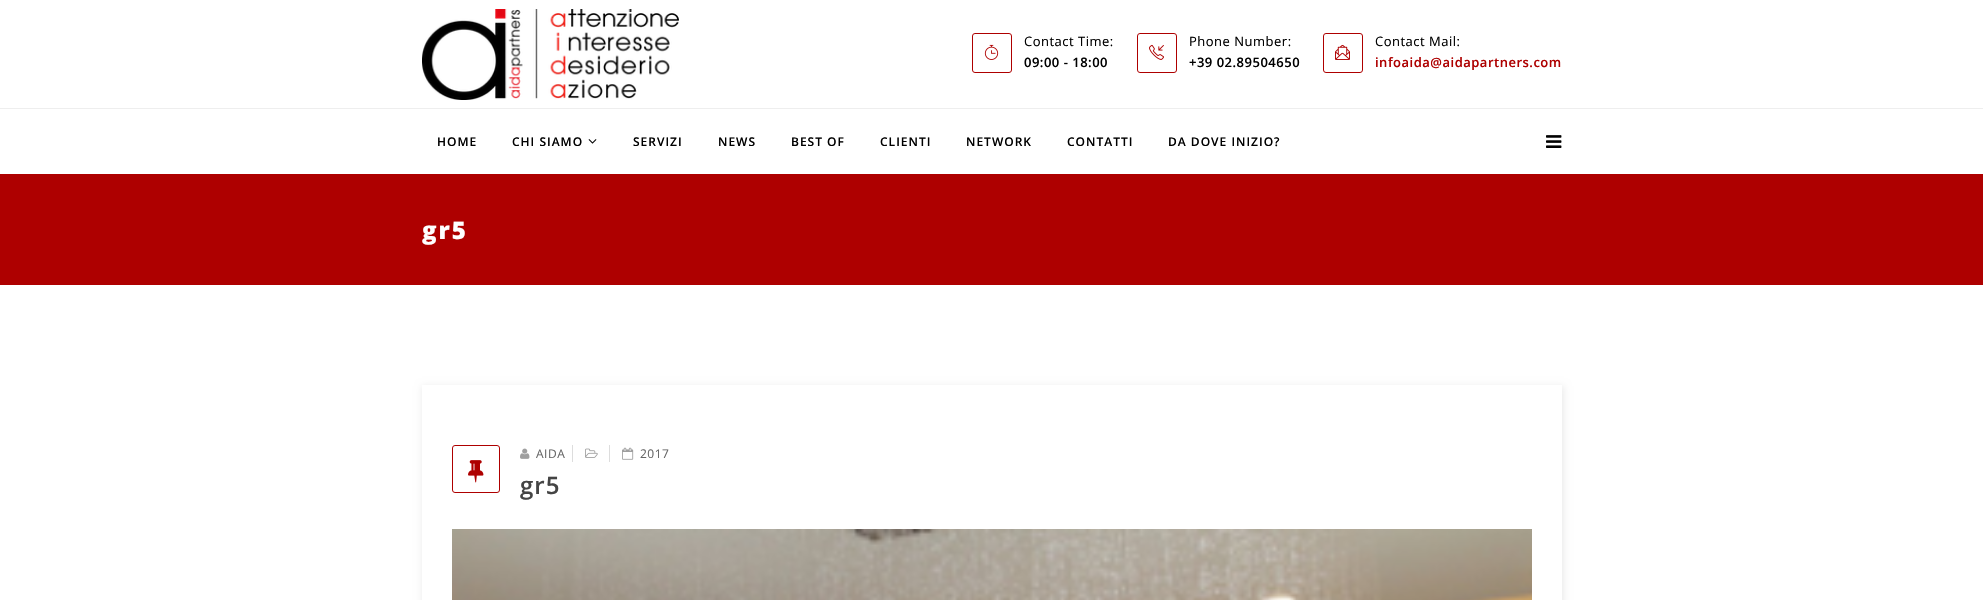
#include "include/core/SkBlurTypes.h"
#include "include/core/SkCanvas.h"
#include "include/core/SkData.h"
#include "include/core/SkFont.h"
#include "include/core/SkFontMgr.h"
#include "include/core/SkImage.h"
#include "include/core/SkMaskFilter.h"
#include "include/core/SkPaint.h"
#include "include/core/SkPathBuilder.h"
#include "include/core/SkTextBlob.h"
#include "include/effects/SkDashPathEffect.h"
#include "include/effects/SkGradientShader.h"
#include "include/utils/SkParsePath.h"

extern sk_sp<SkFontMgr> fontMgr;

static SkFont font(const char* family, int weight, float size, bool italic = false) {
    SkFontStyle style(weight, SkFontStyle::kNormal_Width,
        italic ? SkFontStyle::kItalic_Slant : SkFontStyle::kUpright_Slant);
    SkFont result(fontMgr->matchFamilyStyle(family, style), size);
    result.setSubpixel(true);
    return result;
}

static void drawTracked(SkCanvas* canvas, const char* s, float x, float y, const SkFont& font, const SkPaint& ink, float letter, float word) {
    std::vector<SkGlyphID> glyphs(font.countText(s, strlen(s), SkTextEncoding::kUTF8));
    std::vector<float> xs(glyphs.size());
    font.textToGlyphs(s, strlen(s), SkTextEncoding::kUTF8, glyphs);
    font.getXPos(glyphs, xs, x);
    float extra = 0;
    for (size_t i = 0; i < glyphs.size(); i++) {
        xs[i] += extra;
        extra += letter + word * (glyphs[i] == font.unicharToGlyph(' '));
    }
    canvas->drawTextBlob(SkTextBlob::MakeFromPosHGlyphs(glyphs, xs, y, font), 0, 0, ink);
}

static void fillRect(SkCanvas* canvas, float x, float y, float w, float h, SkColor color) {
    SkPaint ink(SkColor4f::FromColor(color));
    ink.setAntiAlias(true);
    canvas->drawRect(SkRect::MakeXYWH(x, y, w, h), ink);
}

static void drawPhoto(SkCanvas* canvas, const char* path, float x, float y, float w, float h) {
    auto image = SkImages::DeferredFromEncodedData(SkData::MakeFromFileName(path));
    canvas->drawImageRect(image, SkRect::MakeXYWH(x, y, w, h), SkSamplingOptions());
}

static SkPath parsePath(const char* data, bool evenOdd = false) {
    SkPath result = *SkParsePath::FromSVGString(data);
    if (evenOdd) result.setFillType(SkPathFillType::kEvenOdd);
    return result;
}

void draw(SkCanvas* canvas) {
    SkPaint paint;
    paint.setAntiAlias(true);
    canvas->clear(0xFFFFFFFF);
    fillRect(canvas, 0, 108, 1983, 1, 0xFFEEEEEE);
    drawPhoto(canvas, "assets/img1.png", 422, 9, 257, 91);
    paint.setStroke(true);
    paint.setStrokeWidth(1);
    paint.setColor(0xFFAE0000);
    canvas->drawRoundRect(SkRect::MakeXYWH(972.5f, 33.5f, 39, 39), 2.5f, 2.5f, paint);
    drawPhoto(canvas, "assets/img2.png", 984, 44, 15, 16);
    SkFont font1 = font("Open Sans", 400, 13);
    paint.setStroke(false);
    paint.setColor(0xFF000000);
    drawTracked(canvas, "Contact Time:", 1024, 46, font1, paint, 0.5f, 0);
    SkFont font2 = font("Open Sans", 600, 13);
    drawTracked(canvas, "09:00 - 18:00", 1024, 67, font2, paint, 0.5f, 0);
    paint.setStroke(true);
    paint.setColor(0xFFAE0000);
    canvas->drawRoundRect(SkRect::MakeXYWH(1137.5f, 33.5f, 39, 39), 2.5f, 2.5f, paint);
    drawPhoto(canvas, "assets/img3.png", 1149, 44, 15, 16);
    paint.setStroke(false);
    paint.setColor(0xFF000000);
    drawTracked(canvas, "Phone Number:", 1189, 46, font1, paint, 0.5f, 0);
    drawTracked(canvas, "+39 02.89504650", 1189, 67, font2, paint, 0.5f, 0);
    paint.setStroke(true);
    paint.setColor(0xFFAE0000);
    canvas->drawRoundRect(SkRect::MakeXYWH(1323.5f, 33.5f, 39, 39), 2.5f, 2.5f, paint);
    drawPhoto(canvas, "assets/img4.png", 1335, 44, 15, 16);
    paint.setStroke(false);
    paint.setColor(0xFF000000);
    drawTracked(canvas, "Contact Mail:", 1375, 46, font1, paint, 0.5f, 0);
    paint.setColor(0xFFAE0000);
    drawTracked(canvas, "infoaida@aidapartners.com", 1375, 67, font2, paint, 0.5f, 0);
    SkFont font3 = font("Open Sans", 600, 12);
    paint.setColor(0xFF000000);
    drawTracked(canvas, "HOME", 437, 146, font3, paint, 1, 0);
    drawTracked(canvas, "CHI SIAMO", 512, 146, font3, paint, 1, 0);
    drawPhoto(canvas, "assets/img5.png", 588, 139, 9, 5);
    drawTracked(canvas, "SERVIZI", 633, 146, font3, paint, 1, 0);
    drawTracked(canvas, "NEWS", 718, 146, font3, paint, 1, 0);
    drawTracked(canvas, "BEST OF", 791, 146, font3, paint, 1, 0);
    drawTracked(canvas, "CLIENTI", 880, 146, font3, paint, 1, 0);
    drawTracked(canvas, "NETWORK", 966, 146, font3, paint, 1, 0);
    drawTracked(canvas, "CONTATTI", 1067, 146, font3, paint, 1, 0);
    drawTracked(canvas, "DA DOVE INIZIO?", 1168, 146, font3, paint, 1, 0);
    drawPhoto(canvas, "assets/img6.png", 1546, 135, 16, 13);
    fillRect(canvas, 0, 174, 1983, 111, 0xFFAE0000);
    SkFont font4 = font("Open Sans", 800, 24);
    paint.setColor(0xFFFFFFFF);
    drawTracked(canvas, "gr5", 422, 239, font4, paint, 2, 0);
    canvas->save();
    canvas->clipPath(parsePath("M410 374H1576V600H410ZM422 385H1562V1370H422Z", true), true);
    paint.setColor(0x14000000);
    paint.setMaskFilter(SkMaskFilter::MakeBlur(kNormal_SkBlurStyle, 3.5f));
    canvas->drawRect(SkRect::MakeXYWH(422, 386, 1142, 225), paint);
    paint.setMaskFilter(nullptr);
    canvas->restore();
    paint.setStroke(true);
    paint.setColor(0xFFAE0000);
    canvas->drawRoundRect(SkRect::MakeXYWH(452.5f, 445.5f, 47, 47), 2.5f, 2.5f, paint);
    drawPhoto(canvas, "assets/img7.png", 468, 460, 16, 23);
    fillRect(canvas, 572, 445, 1, 17, 0xFFDDDDDD);
    drawPhoto(canvas, "assets/img8.png", 520, 448, 10, 11);
    SkFont font5 = font("Open Sans", 400, 12);
    paint.setStroke(false);
    paint.setColor(0xFF666666);
    drawTracked(canvas, "AIDA", 536, 458, font5, paint, 0.5f, 0);
    fillRect(canvas, 609, 445, 1, 17, 0xFFDDDDDD);
    drawPhoto(canvas, "assets/img9.png", 585, 448, 13, 10);
    drawPhoto(canvas, "assets/img10.png", 622, 447, 12, 13);
    drawTracked(canvas, "2017", 640, 458, font5, paint, 0.5f, 0);
    SkFont font6 = font("Open Sans", 600, 24);
    paint.setColor(0xFF444444);
    drawTracked(canvas, "gr5", 520, 494, font6, paint, 1, 0);
    drawPhoto(canvas, "assets/img11.png", 452, 529, 1080, 71);
}
